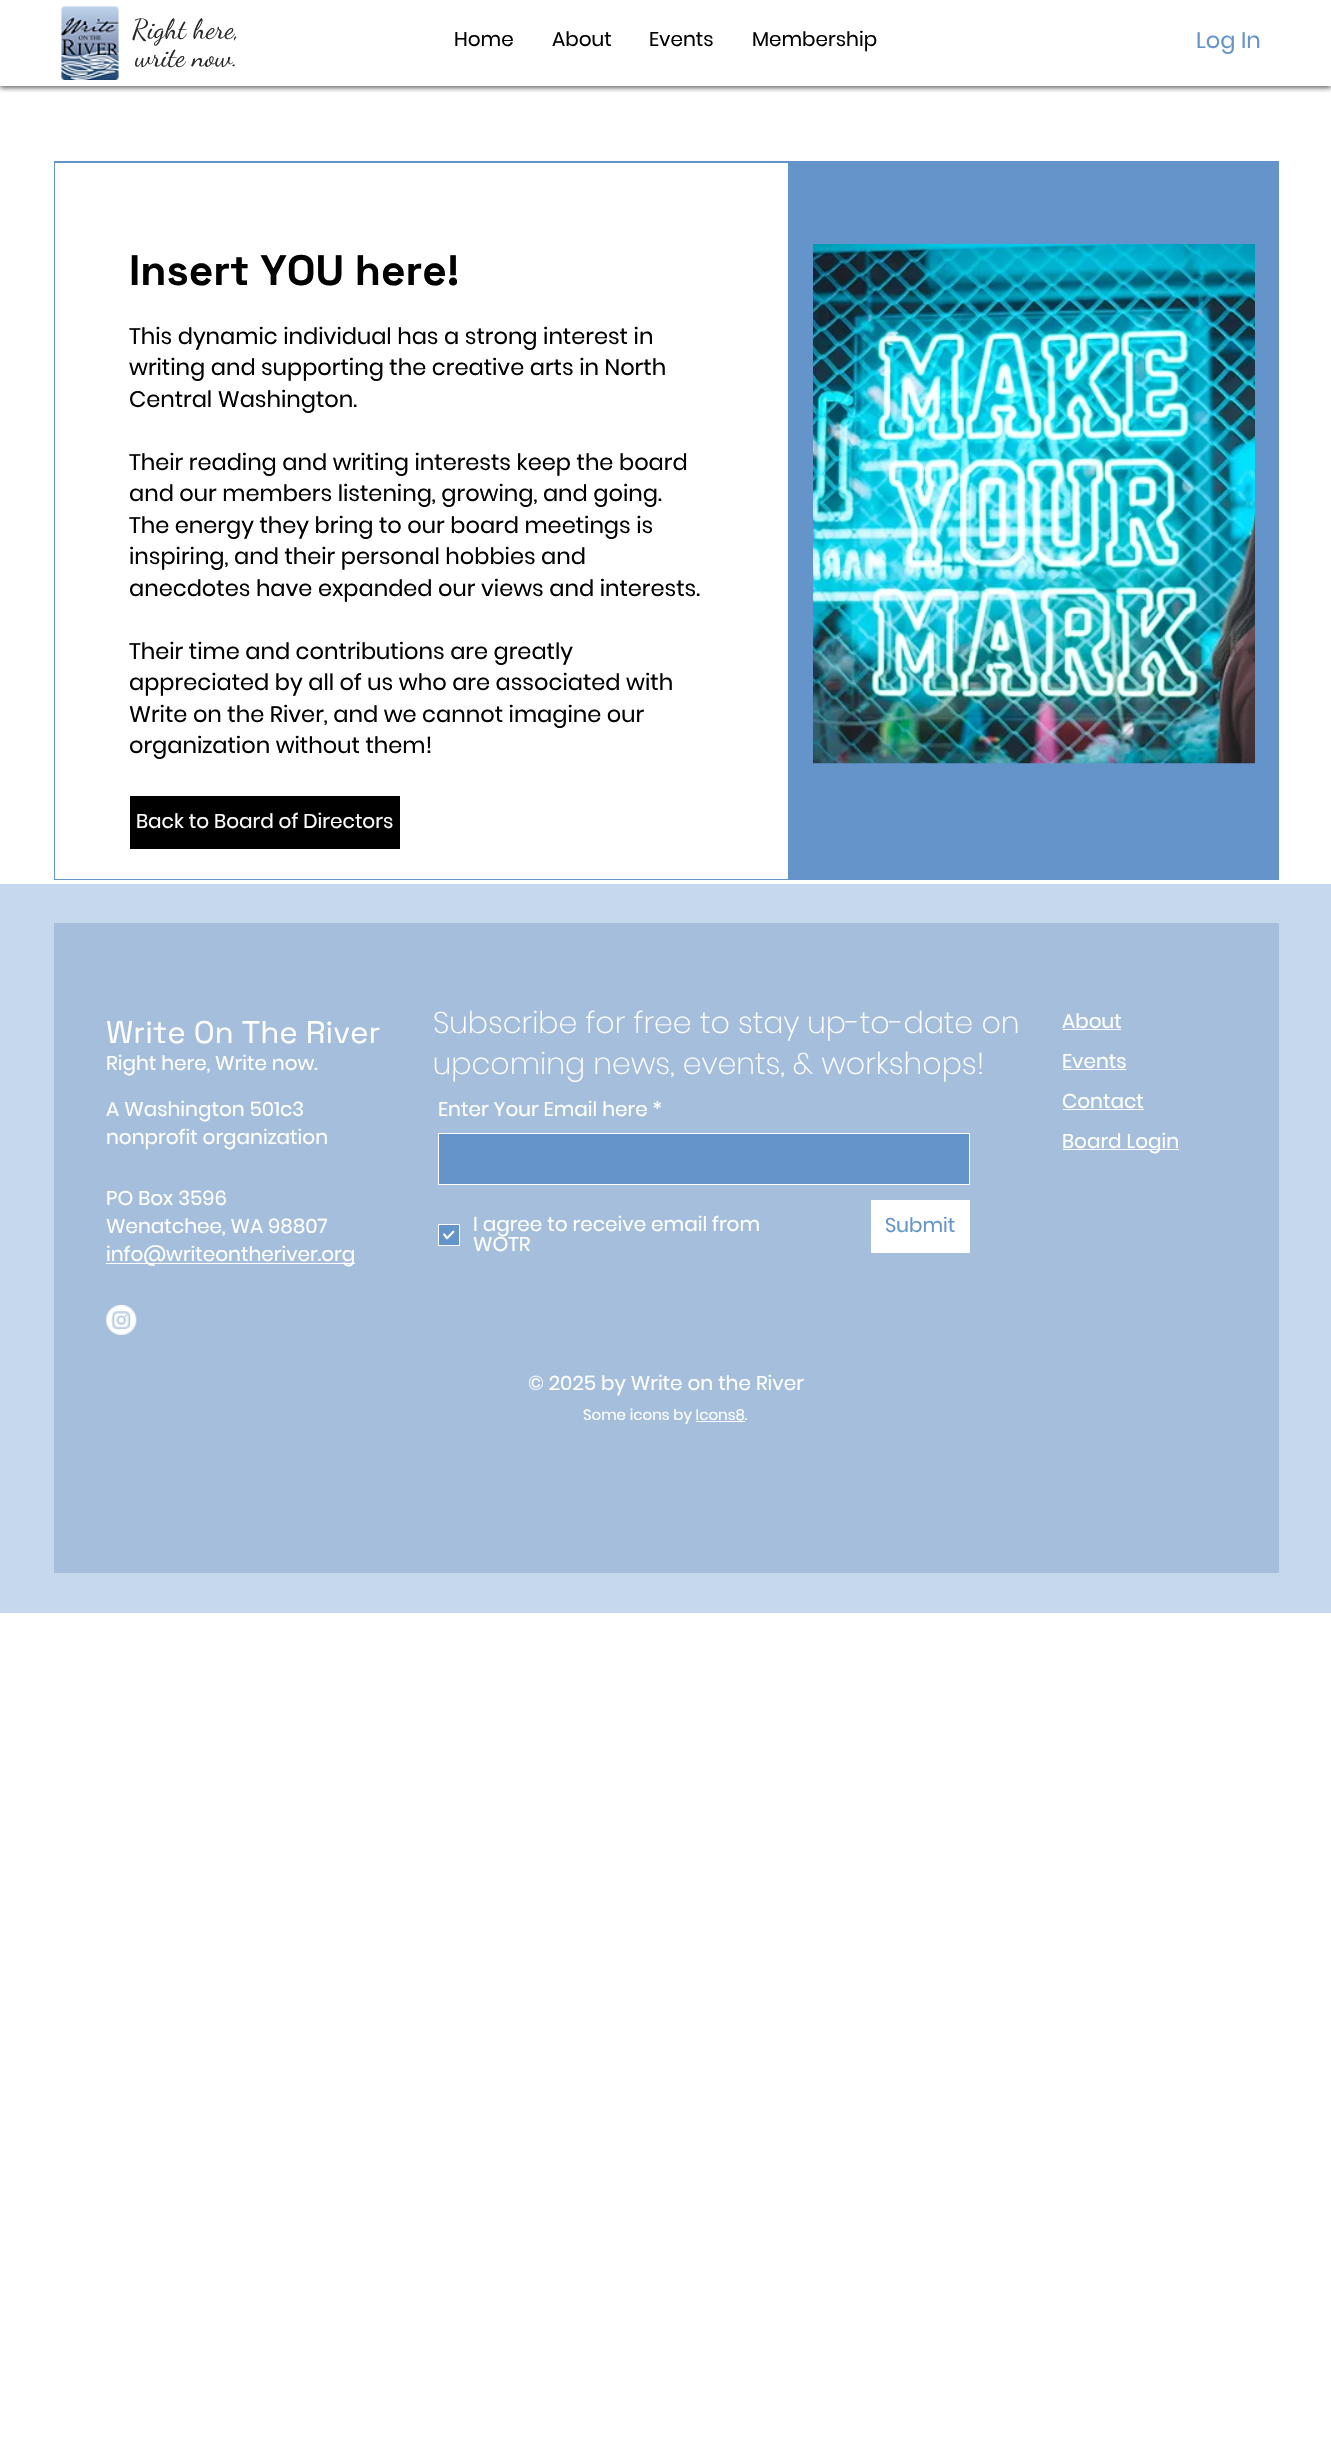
#include "include/core/SkBlurTypes.h"
#include "include/core/SkCanvas.h"
#include "include/core/SkData.h"
#include "include/core/SkFont.h"
#include "include/core/SkFontMgr.h"
#include "include/core/SkImage.h"
#include "include/core/SkMaskFilter.h"
#include "include/core/SkPaint.h"
#include "include/core/SkPathBuilder.h"
#include "include/core/SkTextBlob.h"
#include "include/effects/SkDashPathEffect.h"
#include "include/effects/SkGradientShader.h"
#include "include/utils/SkParsePath.h"

extern sk_sp<SkFontMgr> fontMgr;

static SkFont font(const char* family, int weight, float size, bool italic = false) {
    SkFontStyle style(weight, SkFontStyle::kNormal_Width,
        italic ? SkFontStyle::kItalic_Slant : SkFontStyle::kUpright_Slant);
    SkFont result(fontMgr->matchFamilyStyle(family, style), size);
    result.setSubpixel(true);
    return result;
}

static void drawLabel(SkCanvas* canvas, const char* s, float x, float y, const SkFont& font, SkColor color) {
    SkPaint ink(SkColor4f::FromColor(color));
    ink.setAntiAlias(true);
    canvas->drawString(s, x, y, font, ink);
}

static void fillRect(SkCanvas* canvas, float x, float y, float w, float h, SkColor color) {
    SkPaint ink(SkColor4f::FromColor(color));
    ink.setAntiAlias(true);
    canvas->drawRect(SkRect::MakeXYWH(x, y, w, h), ink);
}

static void drawPhoto(SkCanvas* canvas, const char* path, float x, float y, float w, float h) {
    auto image = SkImages::DeferredFromEncodedData(SkData::MakeFromFileName(path));
    canvas->drawImageRect(image, SkRect::MakeXYWH(x, y, w, h), SkSamplingOptions());
}

void draw(SkCanvas* canvas) {
    SkPaint paint;
    paint.setAntiAlias(true);
    canvas->clear(0xFFFFFFFF);
    canvas->save();
    canvas->clipRect(SkRect::MakeXYWH(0, 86, 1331, 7));
    paint.setColor(0x99000000);
    paint.setMaskFilter(SkMaskFilter::MakeBlur(kNormal_SkBlurStyle, 2.5f));
    canvas->drawRect(SkRect::MakeXYWH(0, 1, 1331, 87), paint);
    paint.setMaskFilter(nullptr);
    canvas->restore();
    drawPhoto(canvas, "assets/img1.png", 61, 6, 58, 74);
    SkFont font1 = font("Dancing Script", 400, 27.5f);
    drawLabel(canvas, "Right here,", 132, 38, font1, 0xFF292929);
    drawLabel(canvas, "write now.", 135, 66, font1, 0xFF292929);
    SkFont font2 = font("Poppins", 400, 20);
    drawLabel(canvas, "Home", 454, 46, font2, 0xFF000000);
    drawLabel(canvas, "About", 552, 46, font2, 0xFF000000);
    drawLabel(canvas, "Events", 649, 46, font2, 0xFF000000);
    drawLabel(canvas, "Membership", 752, 46, font2, 0xFF000000);
    SkFont font3 = font("Poppins", 400, 22.5f);
    drawLabel(canvas, "Log In", 1196, 48, font3, 0xFF6494C9);
    fillRect(canvas, 54, 161, 1225, 719, 0xFF6494C9);
    fillRect(canvas, 55, 163, 733, 716, 0xFFFFFFFF);
    SkFont font4 = font("Space Grotesk", 700, 42.5f);
    drawLabel(canvas, "Insert YOU here!", 129, 285, font4, 0xFF000000);
    drawLabel(canvas, "This dynamic individual has a strong interest in", 129, 344, font3, 0xFF000000);
    drawLabel(canvas, "writing and supporting the creative arts in North", 129, 375, font3, 0xFF000000);
    drawLabel(canvas, "Central Washington.", 129, 407, font3, 0xFF000000);
    drawLabel(canvas, "Their reading and writing interests keep the board", 129, 470, font3, 0xFF000000);
    drawLabel(canvas, "and our members listening, growing, and going.", 129, 501, font3, 0xFF000000);
    drawLabel(canvas, "The energy they bring to our board meetings is", 129, 533, font3, 0xFF000000);
    drawLabel(canvas, "inspiring, and their personal hobbies and", 129, 564, font3, 0xFF000000);
    drawLabel(canvas, "anecdotes have expanded our views and interests.", 129, 596, font3, 0xFF000000);
    drawLabel(canvas, "Their time and contributions are greatly", 129, 659, font3, 0xFF000000);
    drawLabel(canvas, "appreciated by all of us who are associated with", 129, 690, font3, 0xFF000000);
    drawLabel(canvas, "Write on the River, and we cannot imagine our", 129, 722, font3, 0xFF000000);
    drawLabel(canvas, "organization without them!", 129, 753, font3, 0xFF000000);
    fillRect(canvas, 130, 796, 270, 53, 0xFF000000);
    drawLabel(canvas, "Back to Board of Directors", 136, 828, font2, 0xFFFFFFFF);
    drawPhoto(canvas, "assets/img2.png", 813, 244, 442, 520);
    fillRect(canvas, 0, 884, 1331, 729, 0xFFC5D8ED);
    fillRect(canvas, 54, 923, 1225, 650, 0xFFA4BEDB);
    SkFont font5 = font("Space Grotesk", 400, 31.25f);
    drawLabel(canvas, "Write On The River", 106, 1043, font5, 0xFFFFFFFF);
    drawLabel(canvas, "Right here, Write now.", 106, 1070, font2, 0xFFFFFFFF);
    drawLabel(canvas, "A Washington 501c3", 106, 1116, font2, 0xFFFFFFFF);
    drawLabel(canvas, "nonprofit organization", 106, 1144, font2, 0xFFFFFFFF);
    drawLabel(canvas, "PO Box 3596", 106, 1205, font2, 0xFFFFFFFF);
    drawLabel(canvas, "Wenatchee, WA 98807", 106, 1233, font2, 0xFFFFFFFF);
    fillRect(canvas, 106, 1263, 249, 1, 0xFFFFFFFF);
    drawLabel(canvas, "info@writeontheriver.org", 106, 1261, font2, 0xFFFFFFFF);
    drawPhoto(canvas, "assets/img3.png", 106, 1305, 31, 30);
    SkFont font6 = font("Poppins", 200, 30);
    drawLabel(canvas, "Subscribe for free to stay up-to-date on", 433, 1033, font6, 0xFFFFFFFF);
    drawLabel(canvas, "upcoming news, events, & workshops!", 433, 1074, font6, 0xFFFFFFFF);
    drawLabel(canvas, "Enter Your Email here *", 438, 1116, font2, 0xFFFFFFFF);
    paint.setColor(0xFF6494C9);
    canvas->drawRect(SkRect::MakeXYWH(438.5f, 1133.5f, 531, 51), paint);
    paint.setStroke(true);
    paint.setStrokeWidth(1);
    paint.setColor(0xFFFFFFFF);
    canvas->drawRect(SkRect::MakeXYWH(438.5f, 1133.5f, 531, 51), paint);
    paint.setStroke(false);
    paint.setColor(0xFF6494C9);
    canvas->drawRect(SkRect::MakeXYWH(438.5f, 1224.5f, 21, 21), paint);
    paint.setStroke(true);
    paint.setColor(0xFFFFFFFF);
    canvas->drawRect(SkRect::MakeXYWH(438.5f, 1224.5f, 21, 21), paint);
    drawLabel(canvas, "I agree to receive email from", 473, 1231, font2, 0xFFFFFFFF);
    drawLabel(canvas, "WOTR", 473, 1251, font2, 0xFFFFFFFF);
    drawPhoto(canvas, "assets/img4.png", 443, 1230, 12, 10);
    fillRect(canvas, 871, 1200, 99, 53, 0xFFFFFFFF);
    drawLabel(canvas, "Submit", 885, 1232, font2, 0xFF6494C9);
    SkFont font7 = font("Poppins", 400, 15);
    drawLabel(canvas, "Some icons by Icons8.", 583, 1420, font7, 0xFFFFFFFF);
    fillRect(canvas, 696, 1421, 49, 1, 0xFFFFFFFF);
    drawLabel(canvas, "About", 1062, 1028, font2, 0xFFFFFFFF);
    fillRect(canvas, 1063, 1029, 58, 1, 0xFFFFFFFF);
    drawLabel(canvas, "Events", 1062, 1068, font2, 0xFFFFFFFF);
    fillRect(canvas, 1063, 1069, 63, 1, 0xFFFFFFFF);
    drawLabel(canvas, "Contact", 1062, 1108, font2, 0xFFFFFFFF);
    fillRect(canvas, 1063, 1109, 81, 1, 0xFFFFFFFF);
    fillRect(canvas, 1063, 1149, 116, 1, 0xFFFFFFFF);
    drawLabel(canvas, "Board Login", 1062, 1148, font2, 0xFFFFFFFF);
    drawLabel(canvas, "© 2025 by Write on the River", 528, 1390, font2, 0xFFFFFFFF);
}
